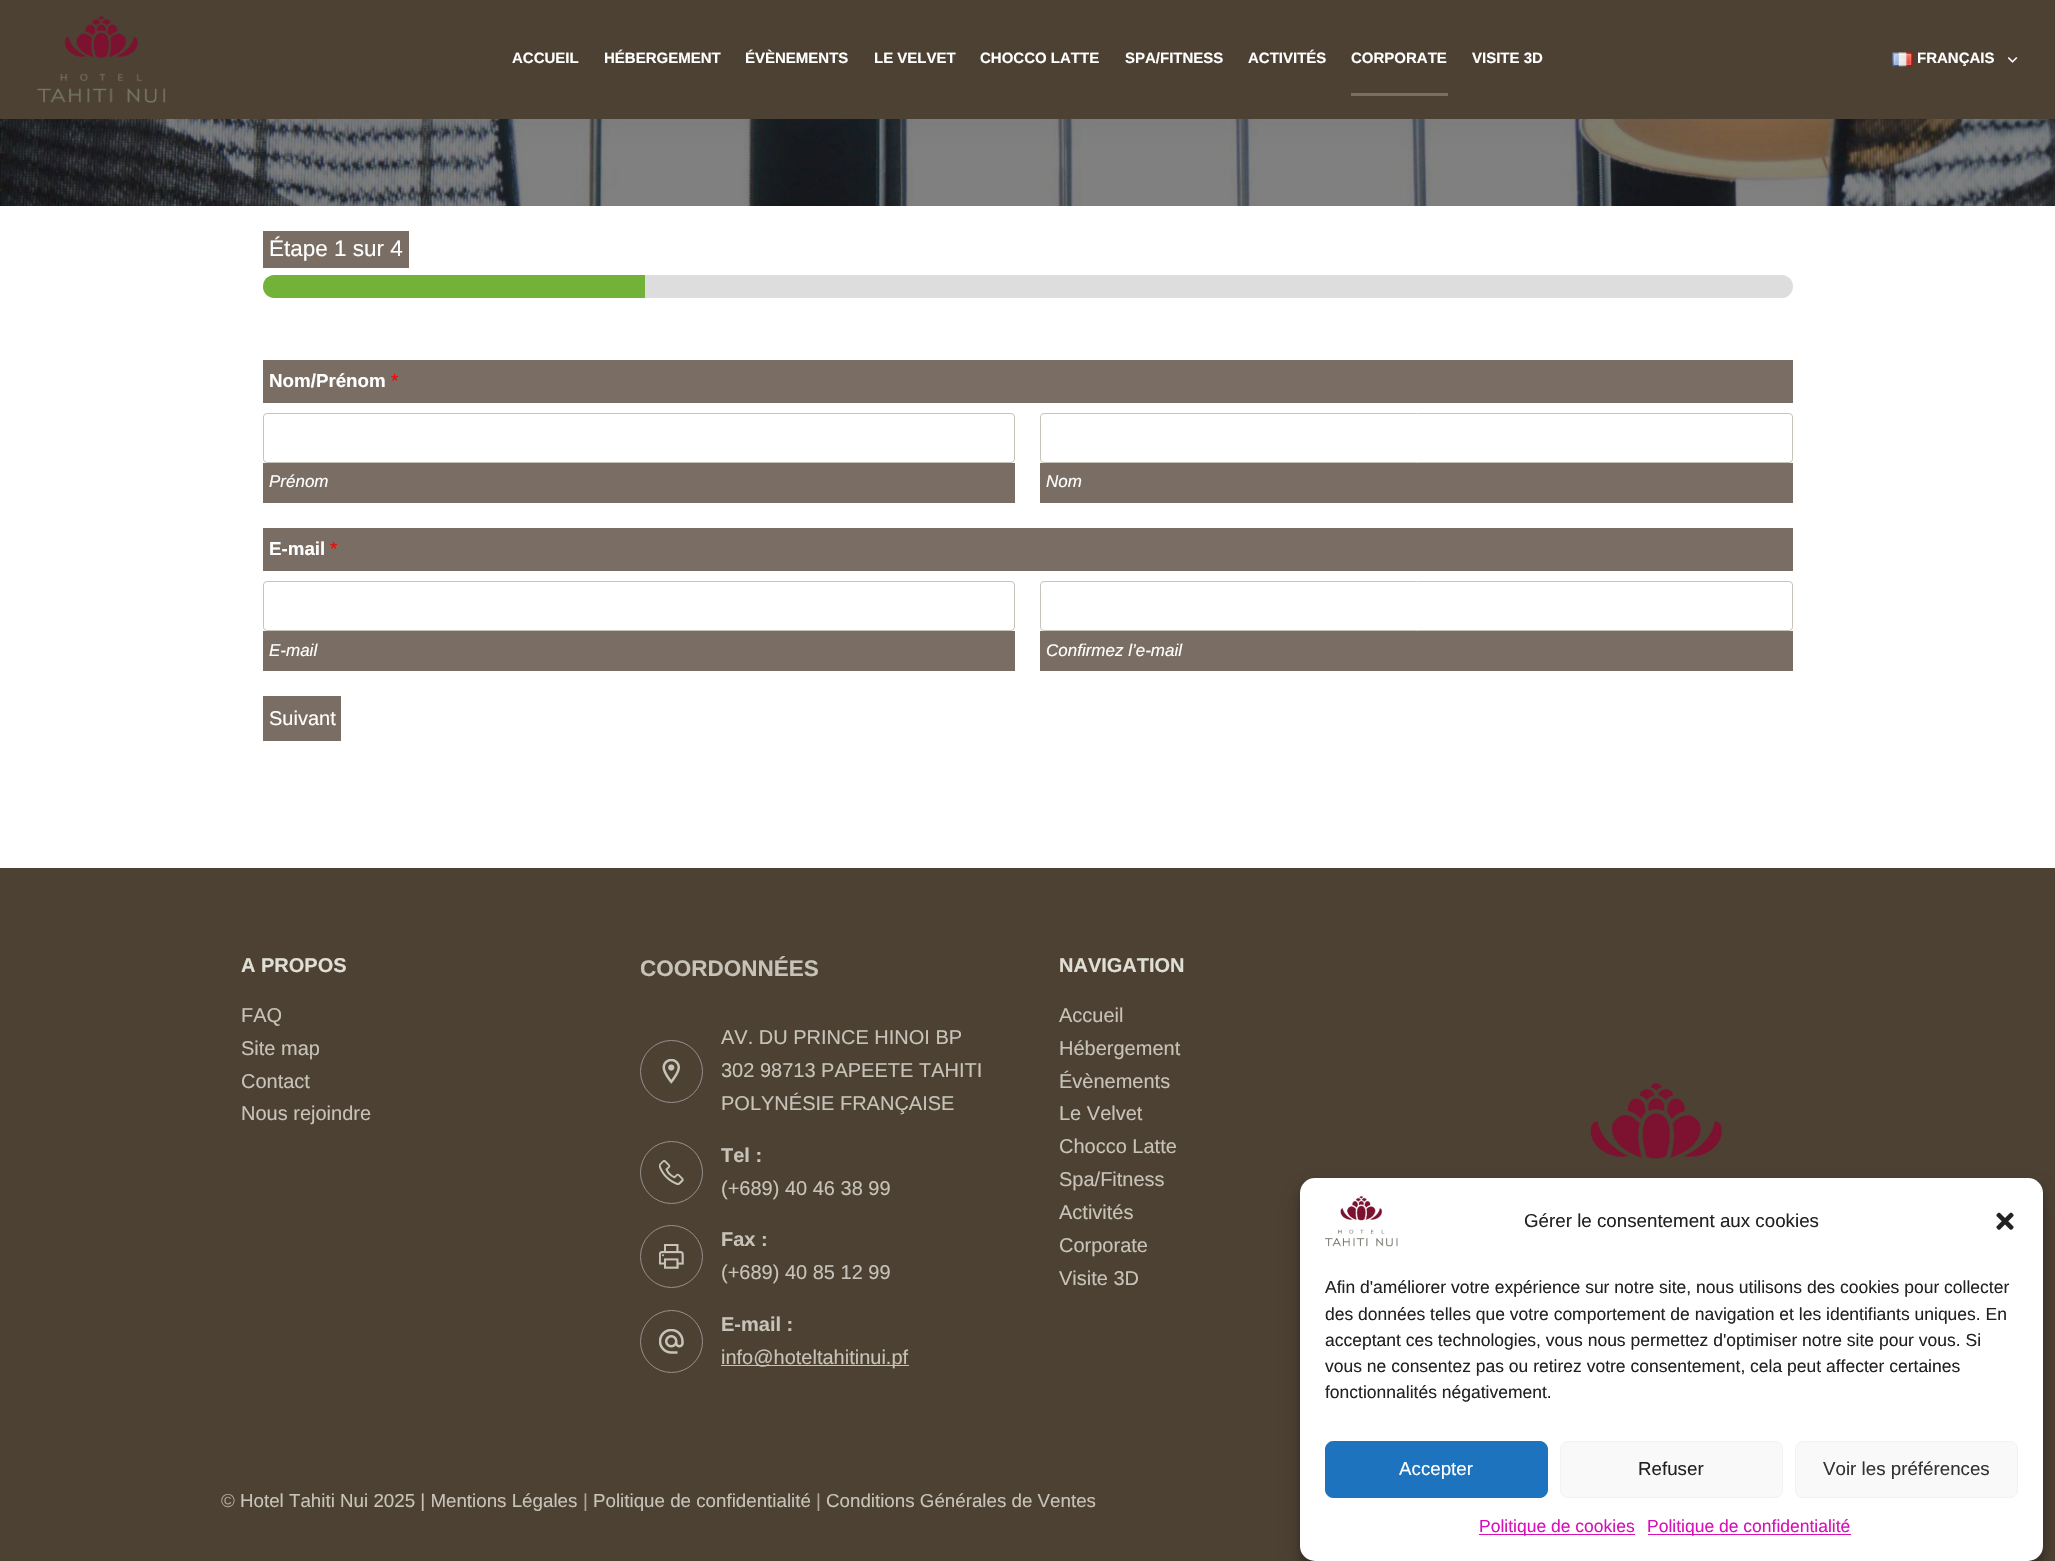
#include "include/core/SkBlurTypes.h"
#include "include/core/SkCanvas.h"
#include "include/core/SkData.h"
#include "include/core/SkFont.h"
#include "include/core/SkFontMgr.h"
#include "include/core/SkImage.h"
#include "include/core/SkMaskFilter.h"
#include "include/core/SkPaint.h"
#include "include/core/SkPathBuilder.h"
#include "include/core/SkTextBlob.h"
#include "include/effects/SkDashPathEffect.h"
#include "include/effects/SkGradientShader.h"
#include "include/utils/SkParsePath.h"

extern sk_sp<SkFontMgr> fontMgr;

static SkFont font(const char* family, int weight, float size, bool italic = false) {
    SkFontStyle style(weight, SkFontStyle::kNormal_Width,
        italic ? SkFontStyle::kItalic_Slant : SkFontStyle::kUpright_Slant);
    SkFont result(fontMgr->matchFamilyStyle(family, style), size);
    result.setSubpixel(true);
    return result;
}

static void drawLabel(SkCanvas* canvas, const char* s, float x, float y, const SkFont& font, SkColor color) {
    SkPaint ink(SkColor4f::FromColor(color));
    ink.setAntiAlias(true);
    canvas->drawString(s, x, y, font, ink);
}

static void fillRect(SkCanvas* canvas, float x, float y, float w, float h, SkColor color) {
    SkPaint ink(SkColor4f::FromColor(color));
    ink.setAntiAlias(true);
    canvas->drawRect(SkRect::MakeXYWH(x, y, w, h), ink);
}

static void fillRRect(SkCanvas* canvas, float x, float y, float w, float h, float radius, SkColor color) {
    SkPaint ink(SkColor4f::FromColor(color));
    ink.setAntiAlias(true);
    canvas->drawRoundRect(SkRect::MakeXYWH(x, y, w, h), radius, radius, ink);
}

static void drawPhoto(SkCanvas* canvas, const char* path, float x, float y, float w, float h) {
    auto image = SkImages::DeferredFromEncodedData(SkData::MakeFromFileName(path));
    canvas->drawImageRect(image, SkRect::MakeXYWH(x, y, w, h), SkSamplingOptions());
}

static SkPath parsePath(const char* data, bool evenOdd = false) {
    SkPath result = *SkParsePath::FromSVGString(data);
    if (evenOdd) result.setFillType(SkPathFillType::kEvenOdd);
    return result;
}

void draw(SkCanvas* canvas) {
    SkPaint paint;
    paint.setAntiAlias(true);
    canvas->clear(0xFFFFFFFF);
    drawPhoto(canvas, "assets/img4.png", 0, 119, 2055, 87);
    paint.setColor(0x0F2B3D50);
    paint.setMaskFilter(SkMaskFilter::MakeBlur(kNormal_SkBlurStyle, 12.5f));
    canvas->drawRect(SkRect::MakeXYWH(0, 13, 2055, 118), paint);
    paint.setMaskFilter(nullptr);
    fillRect(canvas, 0, 0, 2055, 119, 0xFF4D4133);
    drawPhoto(canvas, "assets/img1.png", 37, 16, 129, 87);
    SkFont font1 = font("Liberation Sans", 700, 15);
    drawLabel(canvas, "ACCUEIL", 512, 63, font1, 0xFFFFFFFF);
    drawLabel(canvas, "HÉBERGEMENT", 604, 63, font1, 0xFFFFFFFF);
    drawLabel(canvas, "ÉVÈNEMENTS", 745, 63, font1, 0xFFFFFFFF);
    drawLabel(canvas, "LE VELVET", 874, 63, font1, 0xFFFFFFFF);
    drawLabel(canvas, "CHOCCO LATTE", 980, 63, font1, 0xFFFFFFFF);
    drawLabel(canvas, "SPA/FITNESS", 1125, 63, font1, 0xFFFFFFFF);
    drawLabel(canvas, "ACTIVITÉS", 1248, 63, font1, 0xFFFFFFFF);
    drawLabel(canvas, "CORPORATE", 1351, 63, font1, 0xFFFFFFFF);
    fillRect(canvas, 1351, 93, 97, 3, 0xFF796D64);
    drawLabel(canvas, "VISITE 3D", 1472, 63, font1, 0xFFFFFFFF);
    drawPhoto(canvas, "assets/img2.png", 1892, 52, 21, 15);
    drawLabel(canvas, "FRANÇAIS", 1917, 63, font1, 0xFFFFFFFF);
    drawPhoto(canvas, "assets/img3.png", 2008, 57, 10, 6);
    fillRect(canvas, 263, 231, 146, 37, 0xFF796D64);
    SkFont font2 = font("Liberation Sans", 400, 22.5f);
    drawLabel(canvas, "Étape 1 sur 4", 269, 256, font2, 0xFFFFFFFF);
    fillRRect(canvas, 263, 275, 1530, 23, 11.5f, 0xFFDDDDDD);
    paint.setColor(0xFF72B239);
    canvas->drawPath(parsePath("M274.5 275H645V298H274.5C268 298 263 293 263 286.5C263 280 268 275 274.5 275Z"), paint);
    fillRect(canvas, 263, 360, 1530, 43, 0xFF796D64);
    SkFont font3 = font("Liberation Sans", 700, 18.75f);
    drawLabel(canvas, "Nom/Prénom", 269, 387, font3, 0xFFFFFFFF);
    SkFont font4 = font("Liberation Sans", 400, 18.75f);
    drawLabel(canvas, "*", 391, 387, font4, 0xFFFF0000);
    paint.setStroke(true);
    paint.setStrokeWidth(1);
    paint.setColor(0xFFC7C3B9);
    canvas->drawRoundRect(SkRect::MakeXYWH(263.5f, 413.5f, 751, 49), 3.5f, 3.5f, paint);
    fillRect(canvas, 263, 463, 752, 40, 0xFF796D64);
    SkFont font5 = font("Liberation Sans", 400, 17, true);
    drawLabel(canvas, "Prénom", 269, 487, font5, 0xFFFFFFFF);
    canvas->drawRoundRect(SkRect::MakeXYWH(1040.5f, 413.5f, 752, 49), 3.5f, 3.5f, paint);
    fillRect(canvas, 1040, 463, 753, 40, 0xFF796D64);
    drawLabel(canvas, "Nom", 1046, 487, font5, 0xFFFFFFFF);
    fillRect(canvas, 263, 528, 1530, 43, 0xFF796D64);
    drawLabel(canvas, "E-mail", 269, 555, font3, 0xFFFFFFFF);
    drawLabel(canvas, "*", 330, 555, font4, 0xFFFF0000);
    canvas->drawRoundRect(SkRect::MakeXYWH(263.5f, 581.5f, 751, 49), 3.5f, 3.5f, paint);
    fillRect(canvas, 263, 631, 752, 40, 0xFF796D64);
    drawLabel(canvas, "E-mail", 269, 656, font5, 0xFFFFFFFF);
    canvas->drawRoundRect(SkRect::MakeXYWH(1040.5f, 581.5f, 752, 49), 3.5f, 3.5f, paint);
    fillRect(canvas, 1040, 631, 753, 40, 0xFF796D64);
    drawLabel(canvas, "Confirmez l’e-mail", 1046, 656, font5, 0xFFFFFFFF);
    fillRect(canvas, 263, 696, 78, 45, 0xFF796D64);
    SkFont font6 = font("Liberation Sans", 400, 20);
    drawLabel(canvas, "Suivant", 269, 725, font6, 0xFFFFFFFF);
    fillRect(canvas, 0, 868, 2055, 693, 0xFF4D4133);
    SkFont font7 = font("Liberation Sans", 700, 20);
    drawLabel(canvas, "A PROPOS", 241, 972, font7, 0xFFE0DFD6);
    drawLabel(canvas, "FAQ", 241, 1022, font6, 0xFFC7C3B9);
    drawLabel(canvas, "Site map", 241, 1055, font6, 0xFFC7C3B9);
    drawLabel(canvas, "Contact", 241, 1088, font6, 0xFFC7C3B9);
    drawLabel(canvas, "Nous rejoindre", 241, 1120, font6, 0xFFC7C3B9);
    SkFont font8 = font("Liberation Sans", 700, 22.5f);
    drawLabel(canvas, "COORDONNÉES", 640, 976, font8, 0xFFC7C3B9);
    paint.setColor(0xFF94908C);
    canvas->drawCircle(671.5f, 1071.5f, 31, paint);
    drawPhoto(canvas, "assets/img5.png", 662, 1059, 18, 25);
    drawLabel(canvas, "AV. DU PRINCE HINOI BP", 721, 1044, font6, 0xFFC7C3B9);
    drawLabel(canvas, "302 98713 PAPEETE TAHITI", 721, 1077, font6, 0xFFC7C3B9);
    drawLabel(canvas, "POLYNÉSIE FRANÇAISE", 721, 1110, font6, 0xFFC7C3B9);
    canvas->drawCircle(671.5f, 1172.5f, 31, paint);
    drawPhoto(canvas, "assets/img6.png", 659, 1160, 25, 25);
    drawLabel(canvas, "Tel :", 721, 1162, font7, 0xFFC7C3B9);
    drawLabel(canvas, "(+689) 40 46 38 99", 721, 1195, font6, 0xFFC7C3B9);
    canvas->drawCircle(671.5f, 1256.5f, 31, paint);
    drawPhoto(canvas, "assets/img7.png", 659, 1244, 25, 25);
    drawLabel(canvas, "Fax :", 721, 1246, font7, 0xFFC7C3B9);
    drawLabel(canvas, "(+689) 40 85 12 99", 721, 1279, font6, 0xFFC7C3B9);
    canvas->drawCircle(671.5f, 1341.5f, 31, paint);
    drawPhoto(canvas, "assets/img8.png", 659, 1329, 25, 25);
    drawLabel(canvas, "E-mail :", 721, 1331, font7, 0xFFC7C3B9);
    fillRect(canvas, 721, 1365, 188, 1, 0xFFC7C3B9);
    drawLabel(canvas, "info@hoteltahitinui.pf", 721, 1364, font6, 0xFFC7C3B9);
    drawLabel(canvas, "NAVIGATION", 1059, 972, font7, 0xFFE0DFD6);
    drawLabel(canvas, "Accueil", 1059, 1022, font6, 0xFFC7C3B9);
    drawLabel(canvas, "Hébergement", 1059, 1055, font6, 0xFFC7C3B9);
    drawLabel(canvas, "Évènements", 1059, 1088, font6, 0xFFC7C3B9);
    drawLabel(canvas, "Le Velvet", 1059, 1120, font6, 0xFFC7C3B9);
    drawLabel(canvas, "Chocco Latte", 1059, 1153, font6, 0xFFC7C3B9);
    drawLabel(canvas, "Spa/Fitness", 1059, 1186, font6, 0xFFC7C3B9);
    drawLabel(canvas, "Activités", 1059, 1219, font6, 0xFFC7C3B9);
    drawLabel(canvas, "Corporate", 1059, 1252, font6, 0xFFC7C3B9);
    drawLabel(canvas, "Visite 3D", 1059, 1285, font6, 0xFFC7C3B9);
    drawPhoto(canvas, "assets/img9.png", 1590, 1083, 133, 76);
    drawLabel(canvas, "©", 221, 1507, font4, 0xFFACA39C);
    drawLabel(canvas, "Hotel Tahiti Nui 2025 | Mentions Légales", 240, 1507, font4, 0xFFC7C3B9);
    drawLabel(canvas, "|", 583, 1507, font4, 0xFFACA39C);
    drawLabel(canvas, "Politique de confidentialité", 593, 1507, font4, 0xFFC7C3B9);
    drawLabel(canvas, "|", 816, 1507, font4, 0xFFACA39C);
    drawLabel(canvas, "Conditions Générales de Ventes", 826, 1507, font4, 0xFFC7C3B9);
    paint.setStroke(false);
    paint.setColor(0x3B000000);
    paint.setMaskFilter(SkMaskFilter::MakeBlur(kNormal_SkBlurStyle, 4));
    canvas->drawRoundRect(SkRect::MakeXYWH(1300, 1185, 743, 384), 15, 15, paint);
    paint.setMaskFilter(nullptr);
    paint.setColor(0x30000000);
    paint.setMaskFilter(SkMaskFilter::MakeBlur(kNormal_SkBlurStyle, 12.5f));
    canvas->drawRoundRect(SkRect::MakeXYWH(1300, 1190, 743, 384), 15, 15, paint);
    paint.setMaskFilter(nullptr);
    fillRRect(canvas, 1300, 1178, 743, 383, 15, 0xFFFFFFFF);
    drawPhoto(canvas, "assets/img10.png", 1325, 1196, 73, 51);
    drawLabel(canvas, "Gérer le consentement aux cookies", 1524, 1227, font4, 0xFF222222);
    drawPhoto(canvas, "assets/img11.png", 1996, 1212, 18, 18);
    SkFont font9 = font("Liberation Sans", 400, 17.5f);
    drawLabel(canvas, "Afin d'améliorer votre expérience sur notre site, nous utilisons des cookies pour collecter", 1325, 1293, font9, 0xFF222222);
    drawLabel(canvas, "des données telles que votre comportement de navigation et les identifiants uniques. En", 1325, 1320, font9, 0xFF222222);
    drawLabel(canvas, "acceptant ces technologies, vous nous permettez d'optimiser notre site pour vous. Si", 1325, 1346, font9, 0xFF222222);
    drawLabel(canvas, "vous ne consentez pas ou retirez votre consentement, cela peut affecter certaines", 1325, 1372, font9, 0xFF222222);
    drawLabel(canvas, "fonctionnalités négativement.", 1325, 1398, font9, 0xFF222222);
    paint.setColor(0xFF1E73BE);
    canvas->drawRoundRect(SkRect::MakeXYWH(1325.5f, 1441.5f, 222, 56), 7.5f, 7.5f, paint);
    paint.setStroke(true);
    canvas->drawRoundRect(SkRect::MakeXYWH(1325.5f, 1441.5f, 222, 56), 7.5f, 7.5f, paint);
    drawLabel(canvas, "Accepter", 1399, 1475, font4, 0xFFFFFFFF);
    paint.setStroke(false);
    paint.setColor(0xFFF9F9F9);
    canvas->drawRoundRect(SkRect::MakeXYWH(1560.5f, 1441.5f, 222, 56), 7.5f, 7.5f, paint);
    paint.setStroke(true);
    paint.setColor(0xFFF2F2F2);
    canvas->drawRoundRect(SkRect::MakeXYWH(1560.5f, 1441.5f, 222, 56), 7.5f, 7.5f, paint);
    drawLabel(canvas, "Refuser", 1638, 1475, font4, 0xFF222222);
    paint.setStroke(false);
    paint.setColor(0xFFF9F9F9);
    canvas->drawRoundRect(SkRect::MakeXYWH(1795.5f, 1441.5f, 222, 56), 7.5f, 7.5f, paint);
    paint.setStroke(true);
    paint.setColor(0xFFF2F2F2);
    canvas->drawRoundRect(SkRect::MakeXYWH(1795.5f, 1441.5f, 222, 56), 7.5f, 7.5f, paint);
    drawLabel(canvas, "Voir les préférences", 1823, 1475, font4, 0xFF333333);
    fillRect(canvas, 1479, 1534, 156, 1, 0xFFD711B7);
    drawLabel(canvas, "Politique de cookies", 1479, 1532, font9, 0xFFD711B7);
    fillRect(canvas, 1648, 1534, 203, 1, 0xFFD711B7);
    drawLabel(canvas, "Politique de confidentialité", 1647, 1532, font9, 0xFFD711B7);
}
